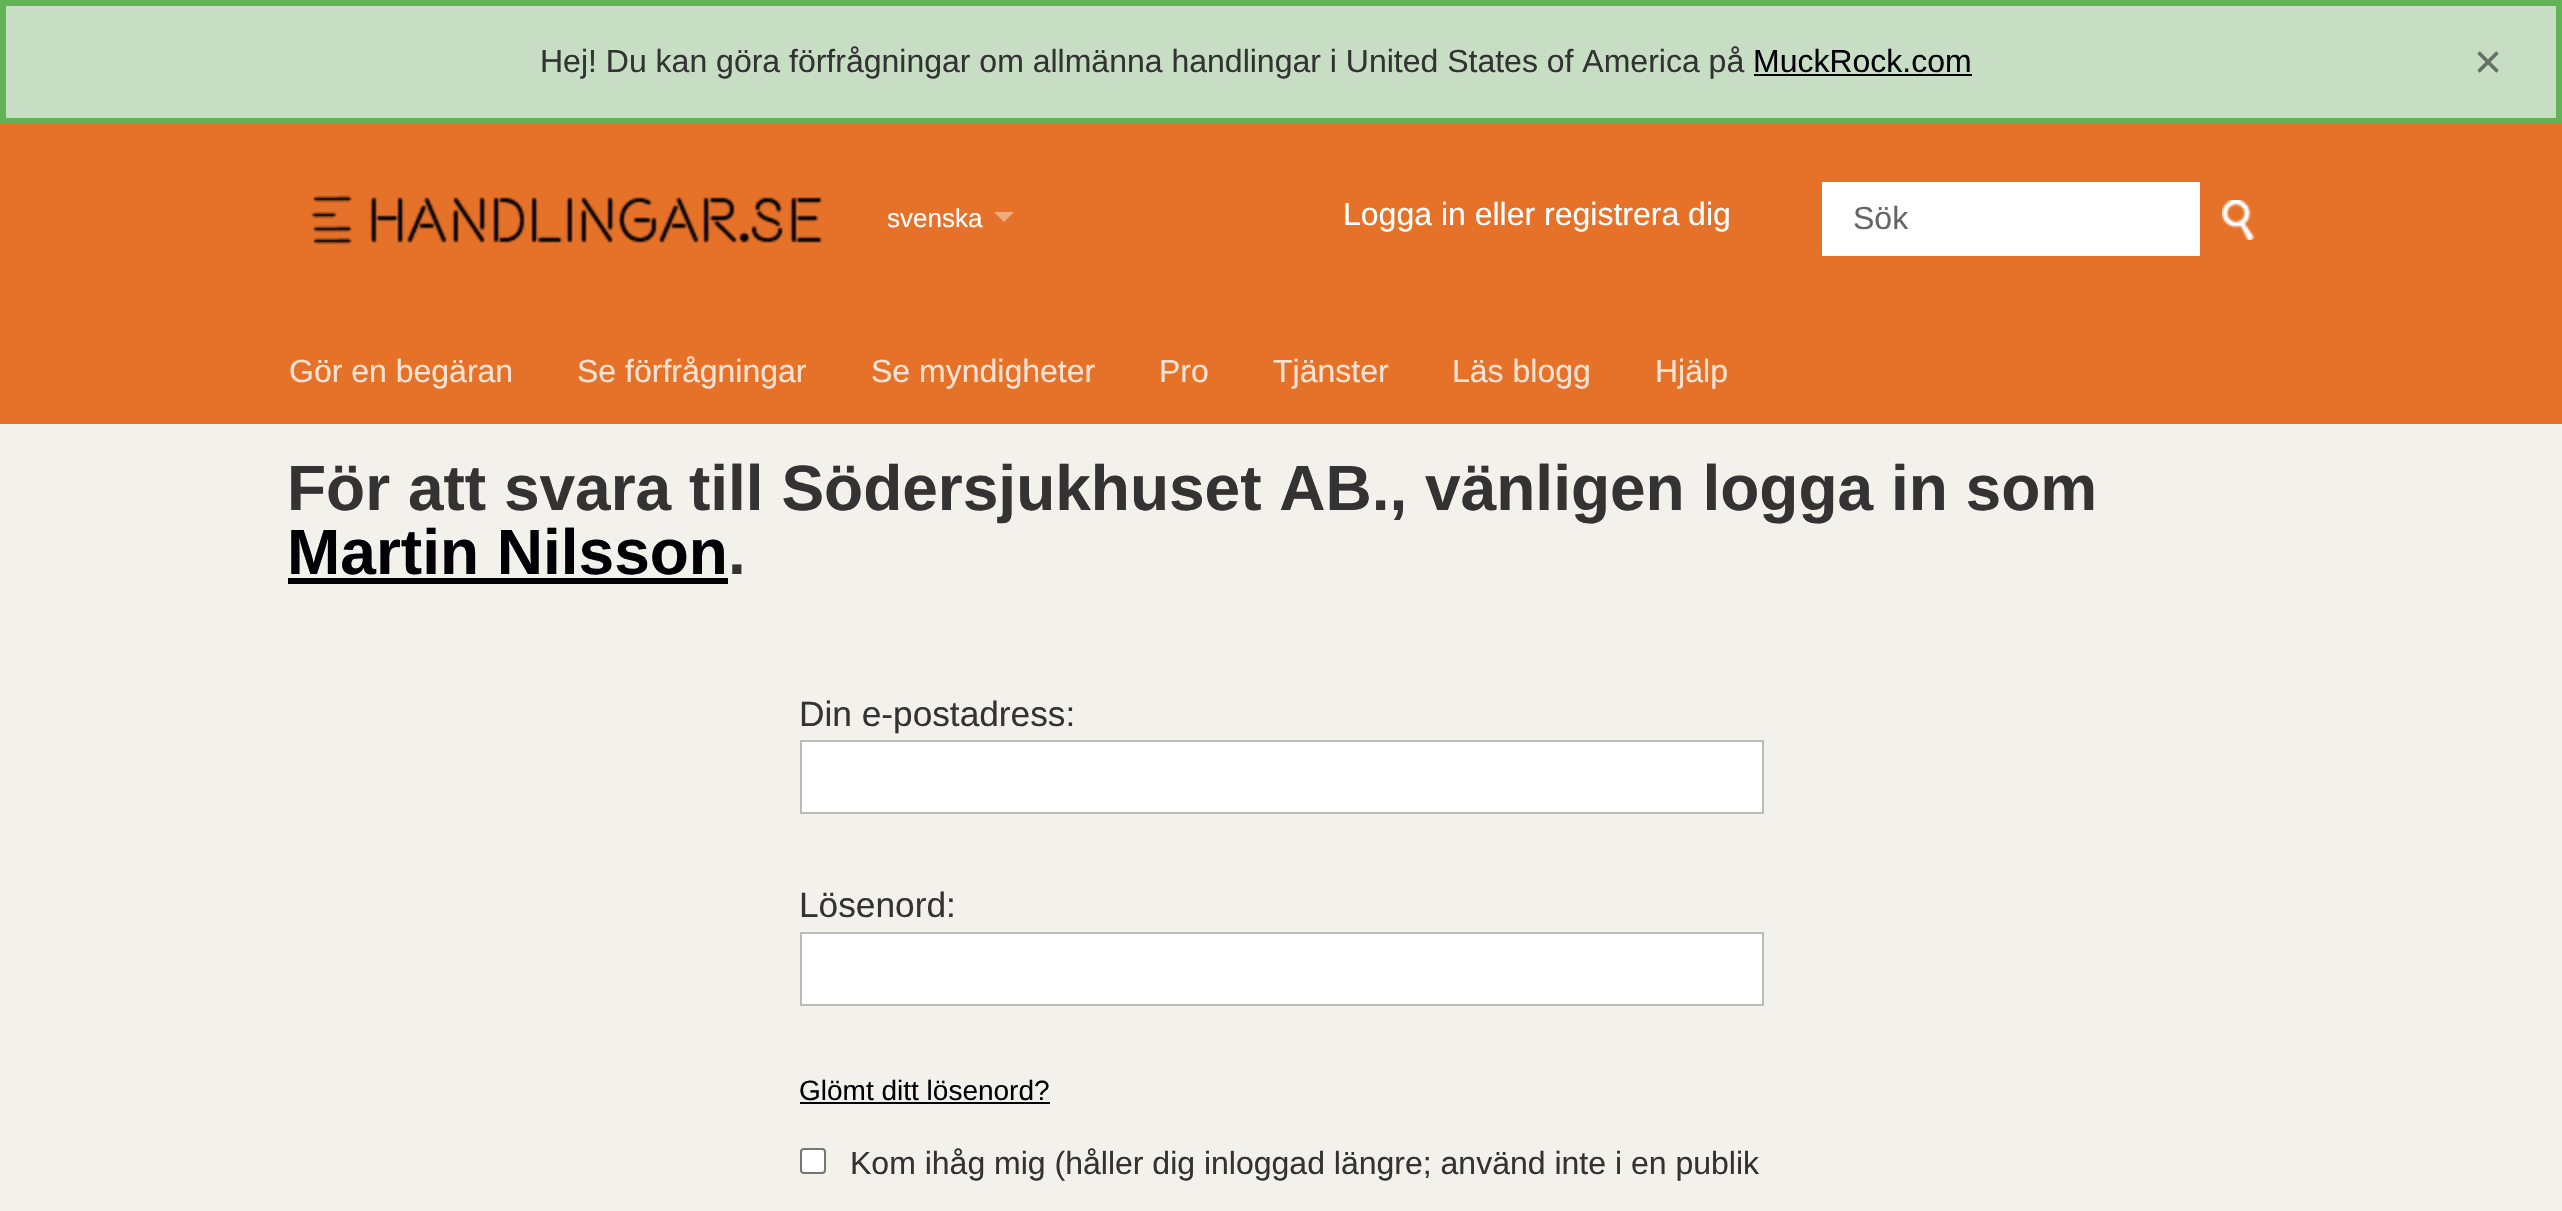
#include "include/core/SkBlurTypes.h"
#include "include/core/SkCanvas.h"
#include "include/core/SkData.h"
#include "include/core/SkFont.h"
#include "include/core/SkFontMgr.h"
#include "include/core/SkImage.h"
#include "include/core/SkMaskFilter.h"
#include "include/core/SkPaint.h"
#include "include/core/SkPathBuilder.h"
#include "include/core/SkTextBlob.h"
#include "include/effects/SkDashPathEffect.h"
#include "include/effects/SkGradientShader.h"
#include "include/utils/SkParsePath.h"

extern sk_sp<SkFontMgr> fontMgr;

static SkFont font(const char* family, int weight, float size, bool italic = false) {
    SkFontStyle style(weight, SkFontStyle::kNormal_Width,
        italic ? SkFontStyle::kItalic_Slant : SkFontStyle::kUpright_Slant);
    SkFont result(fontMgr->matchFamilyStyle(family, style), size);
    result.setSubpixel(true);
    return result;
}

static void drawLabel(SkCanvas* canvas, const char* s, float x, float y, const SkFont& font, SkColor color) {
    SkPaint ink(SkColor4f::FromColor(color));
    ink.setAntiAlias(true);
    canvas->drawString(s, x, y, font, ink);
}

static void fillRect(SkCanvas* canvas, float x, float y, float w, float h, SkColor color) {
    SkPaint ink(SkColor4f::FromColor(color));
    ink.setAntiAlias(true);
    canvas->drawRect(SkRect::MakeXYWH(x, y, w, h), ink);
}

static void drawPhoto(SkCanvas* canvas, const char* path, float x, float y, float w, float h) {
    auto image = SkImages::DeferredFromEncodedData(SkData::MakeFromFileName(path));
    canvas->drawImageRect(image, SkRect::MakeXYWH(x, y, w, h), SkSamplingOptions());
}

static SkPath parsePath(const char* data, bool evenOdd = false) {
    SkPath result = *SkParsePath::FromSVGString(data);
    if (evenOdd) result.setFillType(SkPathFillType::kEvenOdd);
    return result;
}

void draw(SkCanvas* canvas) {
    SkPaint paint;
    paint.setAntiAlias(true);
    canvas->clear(0xFFF3F1EB);
    paint.setColor(0xFFC7DEC4);
    canvas->drawRect(SkRect::MakeXYWH(3, 3, 2556, 118), paint);
    paint.setStroke(true);
    paint.setStrokeWidth(6);
    paint.setColor(0xFF62B356);
    canvas->drawRect(SkRect::MakeXYWH(3, 3, 2556, 118), paint);
    SkFont font1 = font("Liberation Sans", 400, 32);
    drawLabel(canvas, "Hej! Du kan göra förfrågningar om allmänna handlingar i United States of America på", 540, 72, font1, 0xFF333333);
    drawLabel(canvas, "MuckRock.com", 1753, 72, font1, 0xFF010005);
    fillRect(canvas, 1754, 74, 218, 2, 0xFF010005);
    SkFont font2 = font("Liberation Sans", 400, 48);
    drawLabel(canvas, "×", 2474, 78, font2, 0xFF646F65);
    fillRect(canvas, 0, 124, 2562, 300, 0xFFE6722A);
    drawPhoto(canvas, "assets/img1.png", 311, 195, 512, 50);
    SkFont font3 = font("Liberation Sans", 400, 26);
    drawLabel(canvas, "svenska", 887, 227, font3, 0xFFFFFFFF);
    paint.setStroke(false);
    paint.setColor(0xFFF0AA7F);
    canvas->drawPath(parsePath("M994 212H1014L1004 222Z"), paint);
    drawLabel(canvas, "Logga in eller registrera dig", 1343, 225, font1, 0xFFFFFFFF);
    fillRect(canvas, 1822, 182, 378, 74, 0xFFFFFFFF);
    drawLabel(canvas, "Sök", 1853, 229, font1, 0xFF666666);
    drawPhoto(canvas, "assets/img2.png", 2222, 200, 32, 40);
    drawLabel(canvas, "Gör en begäran", 289, 382, font1, 0xFFFAE3D4);
    drawLabel(canvas, "Se förfrågningar", 577, 382, font1, 0xFFFAE3D4);
    drawLabel(canvas, "Se myndigheter", 871, 382, font1, 0xFFFAE3D4);
    drawLabel(canvas, "Pro", 1159, 382, font1, 0xFFFAE3D4);
    drawLabel(canvas, "Tjänster", 1273, 382, font1, 0xFFFAE3D4);
    drawLabel(canvas, "Läs blogg", 1452, 382, font1, 0xFFFAE3D4);
    drawLabel(canvas, "Hjälp", 1655, 382, font1, 0xFFFAE3D4);
    SkFont font4 = font("Liberation Sans", 700, 64);
    drawLabel(canvas, "För att svara till Södersjukhuset AB., vänligen logga in som", 287, 510, font4, 0xFF333333);
    drawLabel(canvas, "Martin Nilsson", 287, 574, font4, 0xFF010005);
    fillRect(canvas, 288, 578, 440, 6, 0xFF010005);
    drawLabel(canvas, ".", 728, 574, font4, 0xFF333333);
    SkFont font5 = font("Liberation Sans", 400, 35.25f);
    drawLabel(canvas, "Din e-postadress:", 799, 726, font5, 0xFF333333);
    paint.setColor(0xFFFFFFFF);
    canvas->drawRect(SkRect::MakeXYWH(801, 741, 962, 72), paint);
    paint.setStroke(true);
    paint.setStrokeWidth(2);
    paint.setColor(0xFFBBBBBB);
    canvas->drawRect(SkRect::MakeXYWH(801, 741, 962, 72), paint);
    drawLabel(canvas, "Lösenord:", 799, 917, font5, 0xFF333333);
    paint.setStroke(false);
    paint.setColor(0xFFFFFFFF);
    canvas->drawRect(SkRect::MakeXYWH(801, 933, 962, 72), paint);
    paint.setStroke(true);
    paint.setColor(0xFFBBBBBB);
    canvas->drawRect(SkRect::MakeXYWH(801, 933, 962, 72), paint);
    SkFont font6 = font("Liberation Sans", 400, 28);
    drawLabel(canvas, "Glömt ditt lösenord?", 799, 1100, font6, 0xFF010005);
    fillRect(canvas, 800, 1102, 250, 2, 0xFF010005);
    paint.setStroke(false);
    paint.setColor(0xFFFFFFFF);
    canvas->drawRoundRect(SkRect::MakeXYWH(801, 1149, 24, 24), 3, 3, paint);
    paint.setStroke(true);
    paint.setColor(0xFF767676);
    canvas->drawRoundRect(SkRect::MakeXYWH(801, 1149, 24, 24), 3, 3, paint);
    drawLabel(canvas, "Kom ihåg mig (håller dig inloggad längre; använd inte i en publik", 850, 1174, font1, 0xFF333333);
}
